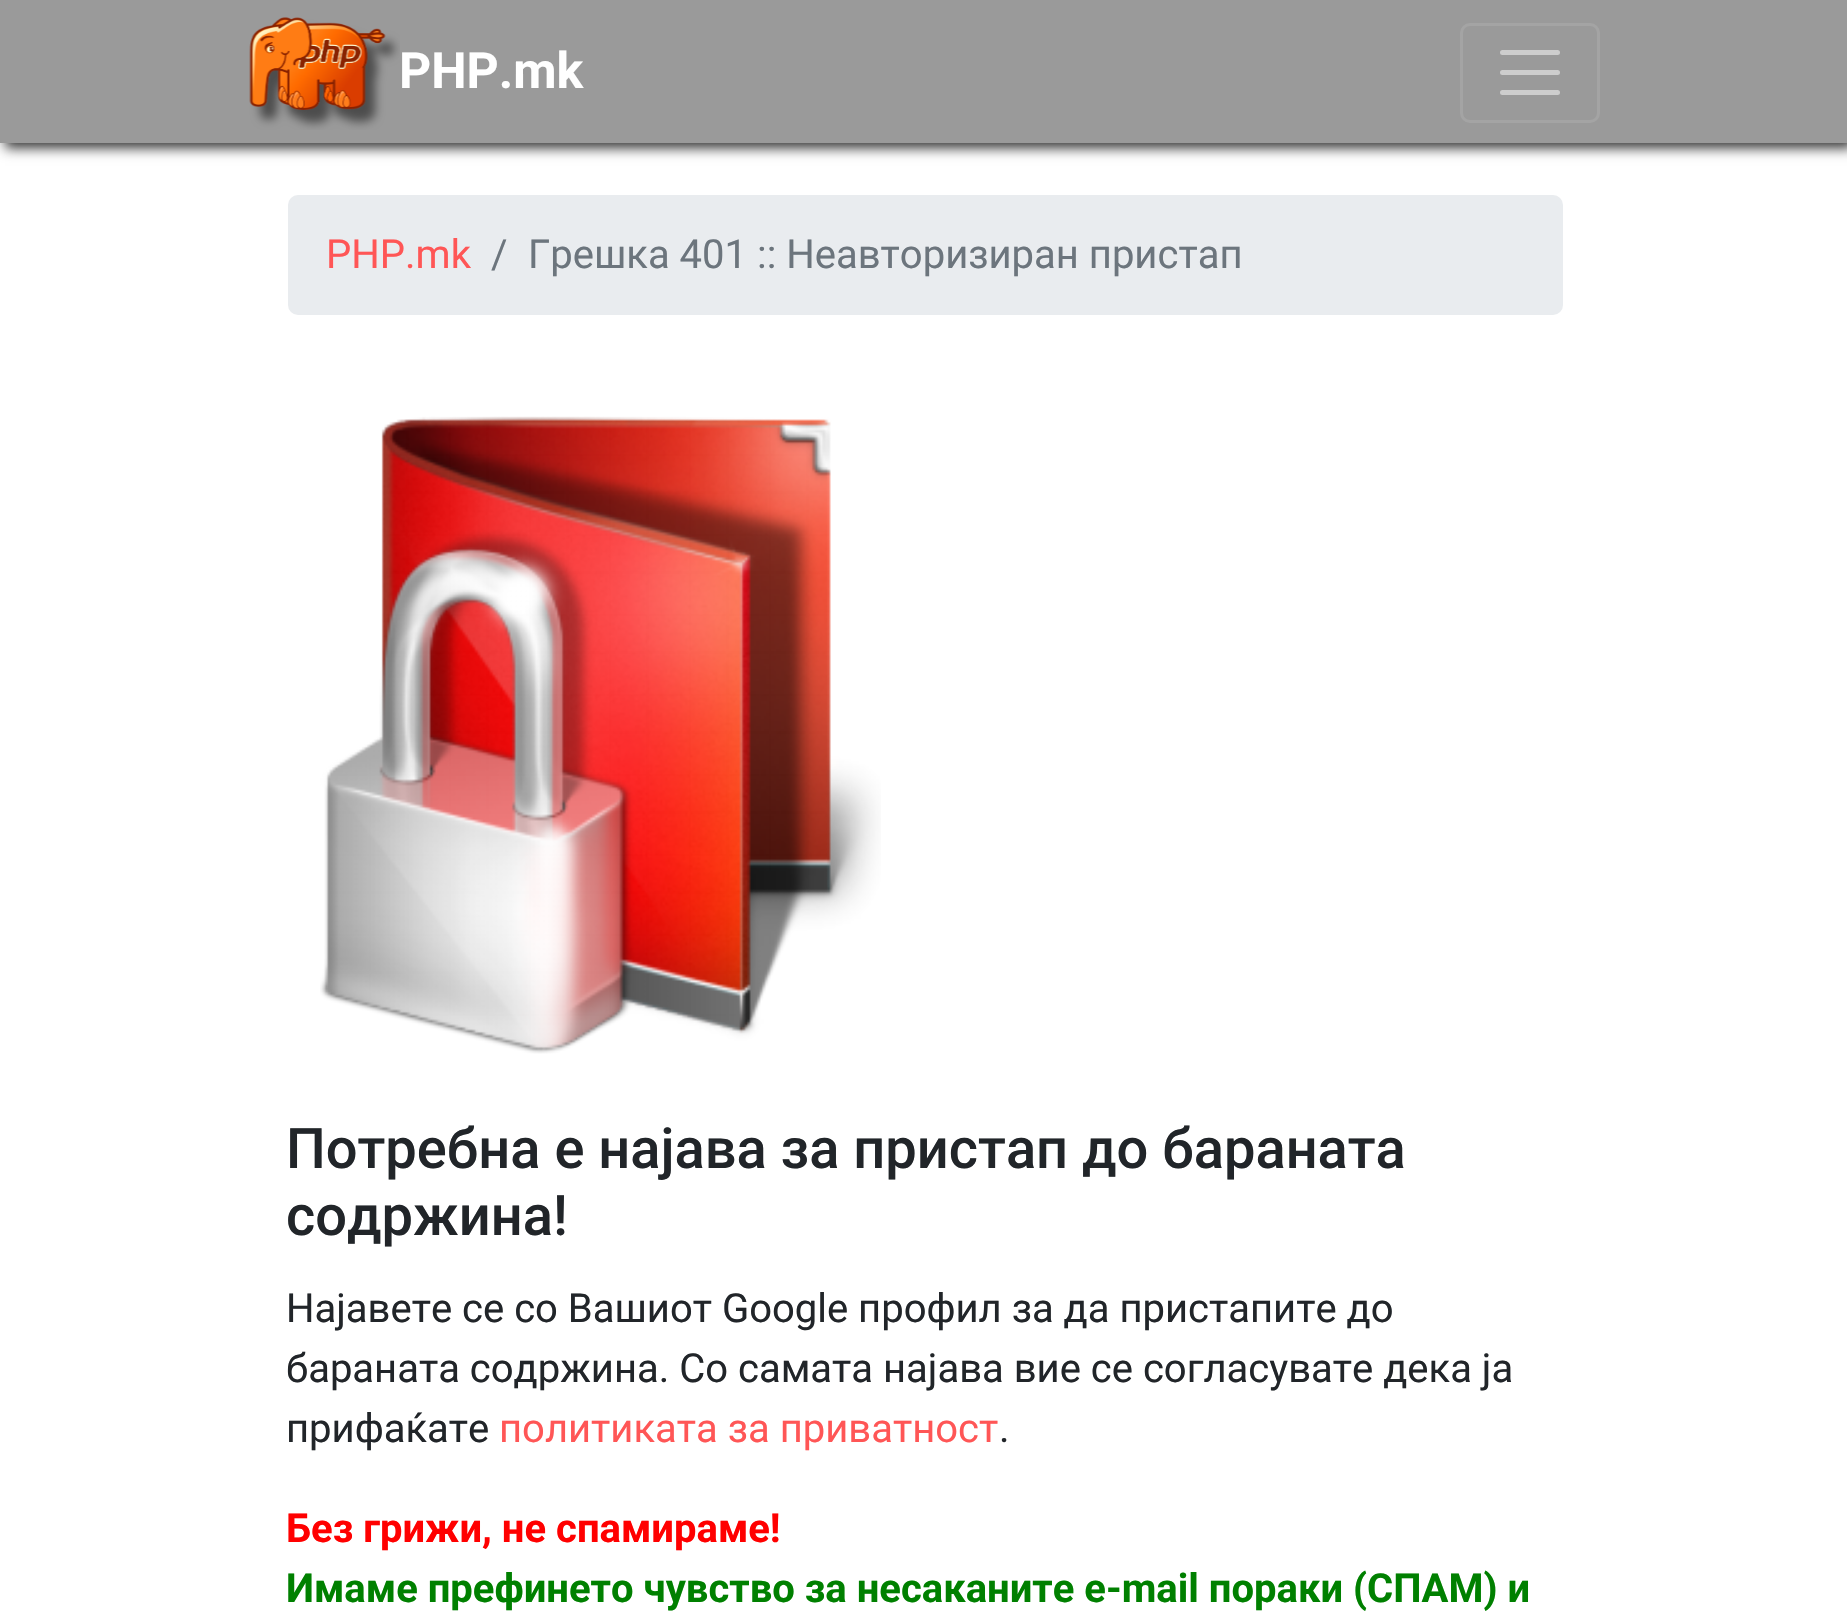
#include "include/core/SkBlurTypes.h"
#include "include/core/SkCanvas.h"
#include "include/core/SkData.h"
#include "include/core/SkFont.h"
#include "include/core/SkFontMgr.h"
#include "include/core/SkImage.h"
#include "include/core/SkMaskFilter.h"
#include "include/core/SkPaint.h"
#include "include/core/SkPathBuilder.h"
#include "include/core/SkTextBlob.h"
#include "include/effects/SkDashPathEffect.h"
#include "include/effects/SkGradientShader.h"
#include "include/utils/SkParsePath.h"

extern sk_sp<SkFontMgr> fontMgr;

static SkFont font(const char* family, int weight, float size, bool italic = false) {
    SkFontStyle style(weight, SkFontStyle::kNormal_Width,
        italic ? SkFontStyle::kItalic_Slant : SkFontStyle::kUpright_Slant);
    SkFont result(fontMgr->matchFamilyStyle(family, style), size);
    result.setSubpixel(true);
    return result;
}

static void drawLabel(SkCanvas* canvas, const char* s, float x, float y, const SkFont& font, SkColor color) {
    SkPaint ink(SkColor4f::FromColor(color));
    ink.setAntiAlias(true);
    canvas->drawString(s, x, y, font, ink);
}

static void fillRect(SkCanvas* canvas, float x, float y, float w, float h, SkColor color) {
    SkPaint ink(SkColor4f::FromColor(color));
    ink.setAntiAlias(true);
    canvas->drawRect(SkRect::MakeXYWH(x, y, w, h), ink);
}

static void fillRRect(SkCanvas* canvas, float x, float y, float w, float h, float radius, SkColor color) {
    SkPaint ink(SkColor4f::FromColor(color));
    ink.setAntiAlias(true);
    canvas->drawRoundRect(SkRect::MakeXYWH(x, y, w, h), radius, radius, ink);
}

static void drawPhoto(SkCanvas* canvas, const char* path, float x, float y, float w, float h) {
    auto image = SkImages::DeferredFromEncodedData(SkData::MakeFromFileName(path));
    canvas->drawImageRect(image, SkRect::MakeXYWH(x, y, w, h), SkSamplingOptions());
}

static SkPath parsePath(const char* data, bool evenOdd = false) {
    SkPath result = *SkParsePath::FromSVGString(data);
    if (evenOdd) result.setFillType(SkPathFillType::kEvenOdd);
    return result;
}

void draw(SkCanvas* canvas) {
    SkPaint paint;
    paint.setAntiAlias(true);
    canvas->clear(0xFFFFFFFF);
    paint.setColor(0xFF333333);
    paint.setMaskFilter(SkMaskFilter::MakeBlur(kNormal_SkBlurStyle, 6));
    canvas->drawRect(SkRect::MakeXYWH(5, 5, 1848, 143), paint);
    paint.setMaskFilter(nullptr);
    fillRect(canvas, 0, 0, 1847, 143, 0xFF9A9A9A);
    drawPhoto(canvas, "assets/img1.png", 249, 17, 151, 113);
    SkFont font1 = font("Roboto", 700, 50);
    drawLabel(canvas, "PHP.mk", 399, 88, font1, 0xFFFFFFFF);
    paint.setStroke(true);
    paint.setStrokeWidth(3);
    paint.setColor(0xFFA4A4A4);
    canvas->drawRoundRect(SkRect::MakeXYWH(1461.5f, 24.5f, 137, 97), 8.5f, 8.5f, paint);
    paint.setStrokeWidth(5);
    paint.setStrokeCap(SkPaint::kRound_Cap);
    paint.setColor(0xFFCDCDCD);
    canvas->drawPath(parsePath("M1502.5 52.5H1557.5M1502.5 72.5H1557.5M1502.5 92.5H1557.5"), paint);
    fillRRect(canvas, 288, 195, 1275, 120, 10, 0xFFE9ECEF);
    SkFont font2 = font("Roboto", 400, 40);
    drawLabel(canvas, "PHP.mk", 326, 268, font2, 0xFFFF5656);
    drawLabel(canvas, "/", 491, 268, font2, 0xFF6C757D);
    drawLabel(canvas, "Грешка 401 :: Неавторизиран пристап", 528, 268, font2, 0xFF6C757D);
    drawPhoto(canvas, "assets/img2.png", 320, 416, 561, 638);
    SkFont font3 = font("Roboto", 500, 56);
    drawLabel(canvas, "Потребна е најава за пристап до бараната", 286, 1168, font3, 0xFF212529);
    drawLabel(canvas, "содржина!", 286, 1235, font3, 0xFF212529);
    drawLabel(canvas, "Најавете се со Вашиот Google профил за да пристапите до", 286, 1322, font2, 0xFF212529);
    drawLabel(canvas, "бараната содржина. Со самата најава вие се согласувате дека ја", 286, 1382, font2, 0xFF212529);
    drawLabel(canvas, "прифаќате", 286, 1442, font2, 0xFF212529);
    drawLabel(canvas, "политиката за приватност", 499, 1442, font2, 0xFFFF5656);
    drawLabel(canvas, ".", 999, 1442, font2, 0xFF212529);
    SkFont font4 = font("Roboto", 700, 40);
    drawLabel(canvas, "Без грижи, не спамираме!", 286, 1542, font4, 0xFFFF0000);
    drawLabel(canvas, "Имаме префинето чувство за несаканите e-mail пораки (СПАМ) и", 286, 1602, font4, 0xFF008000);
}
